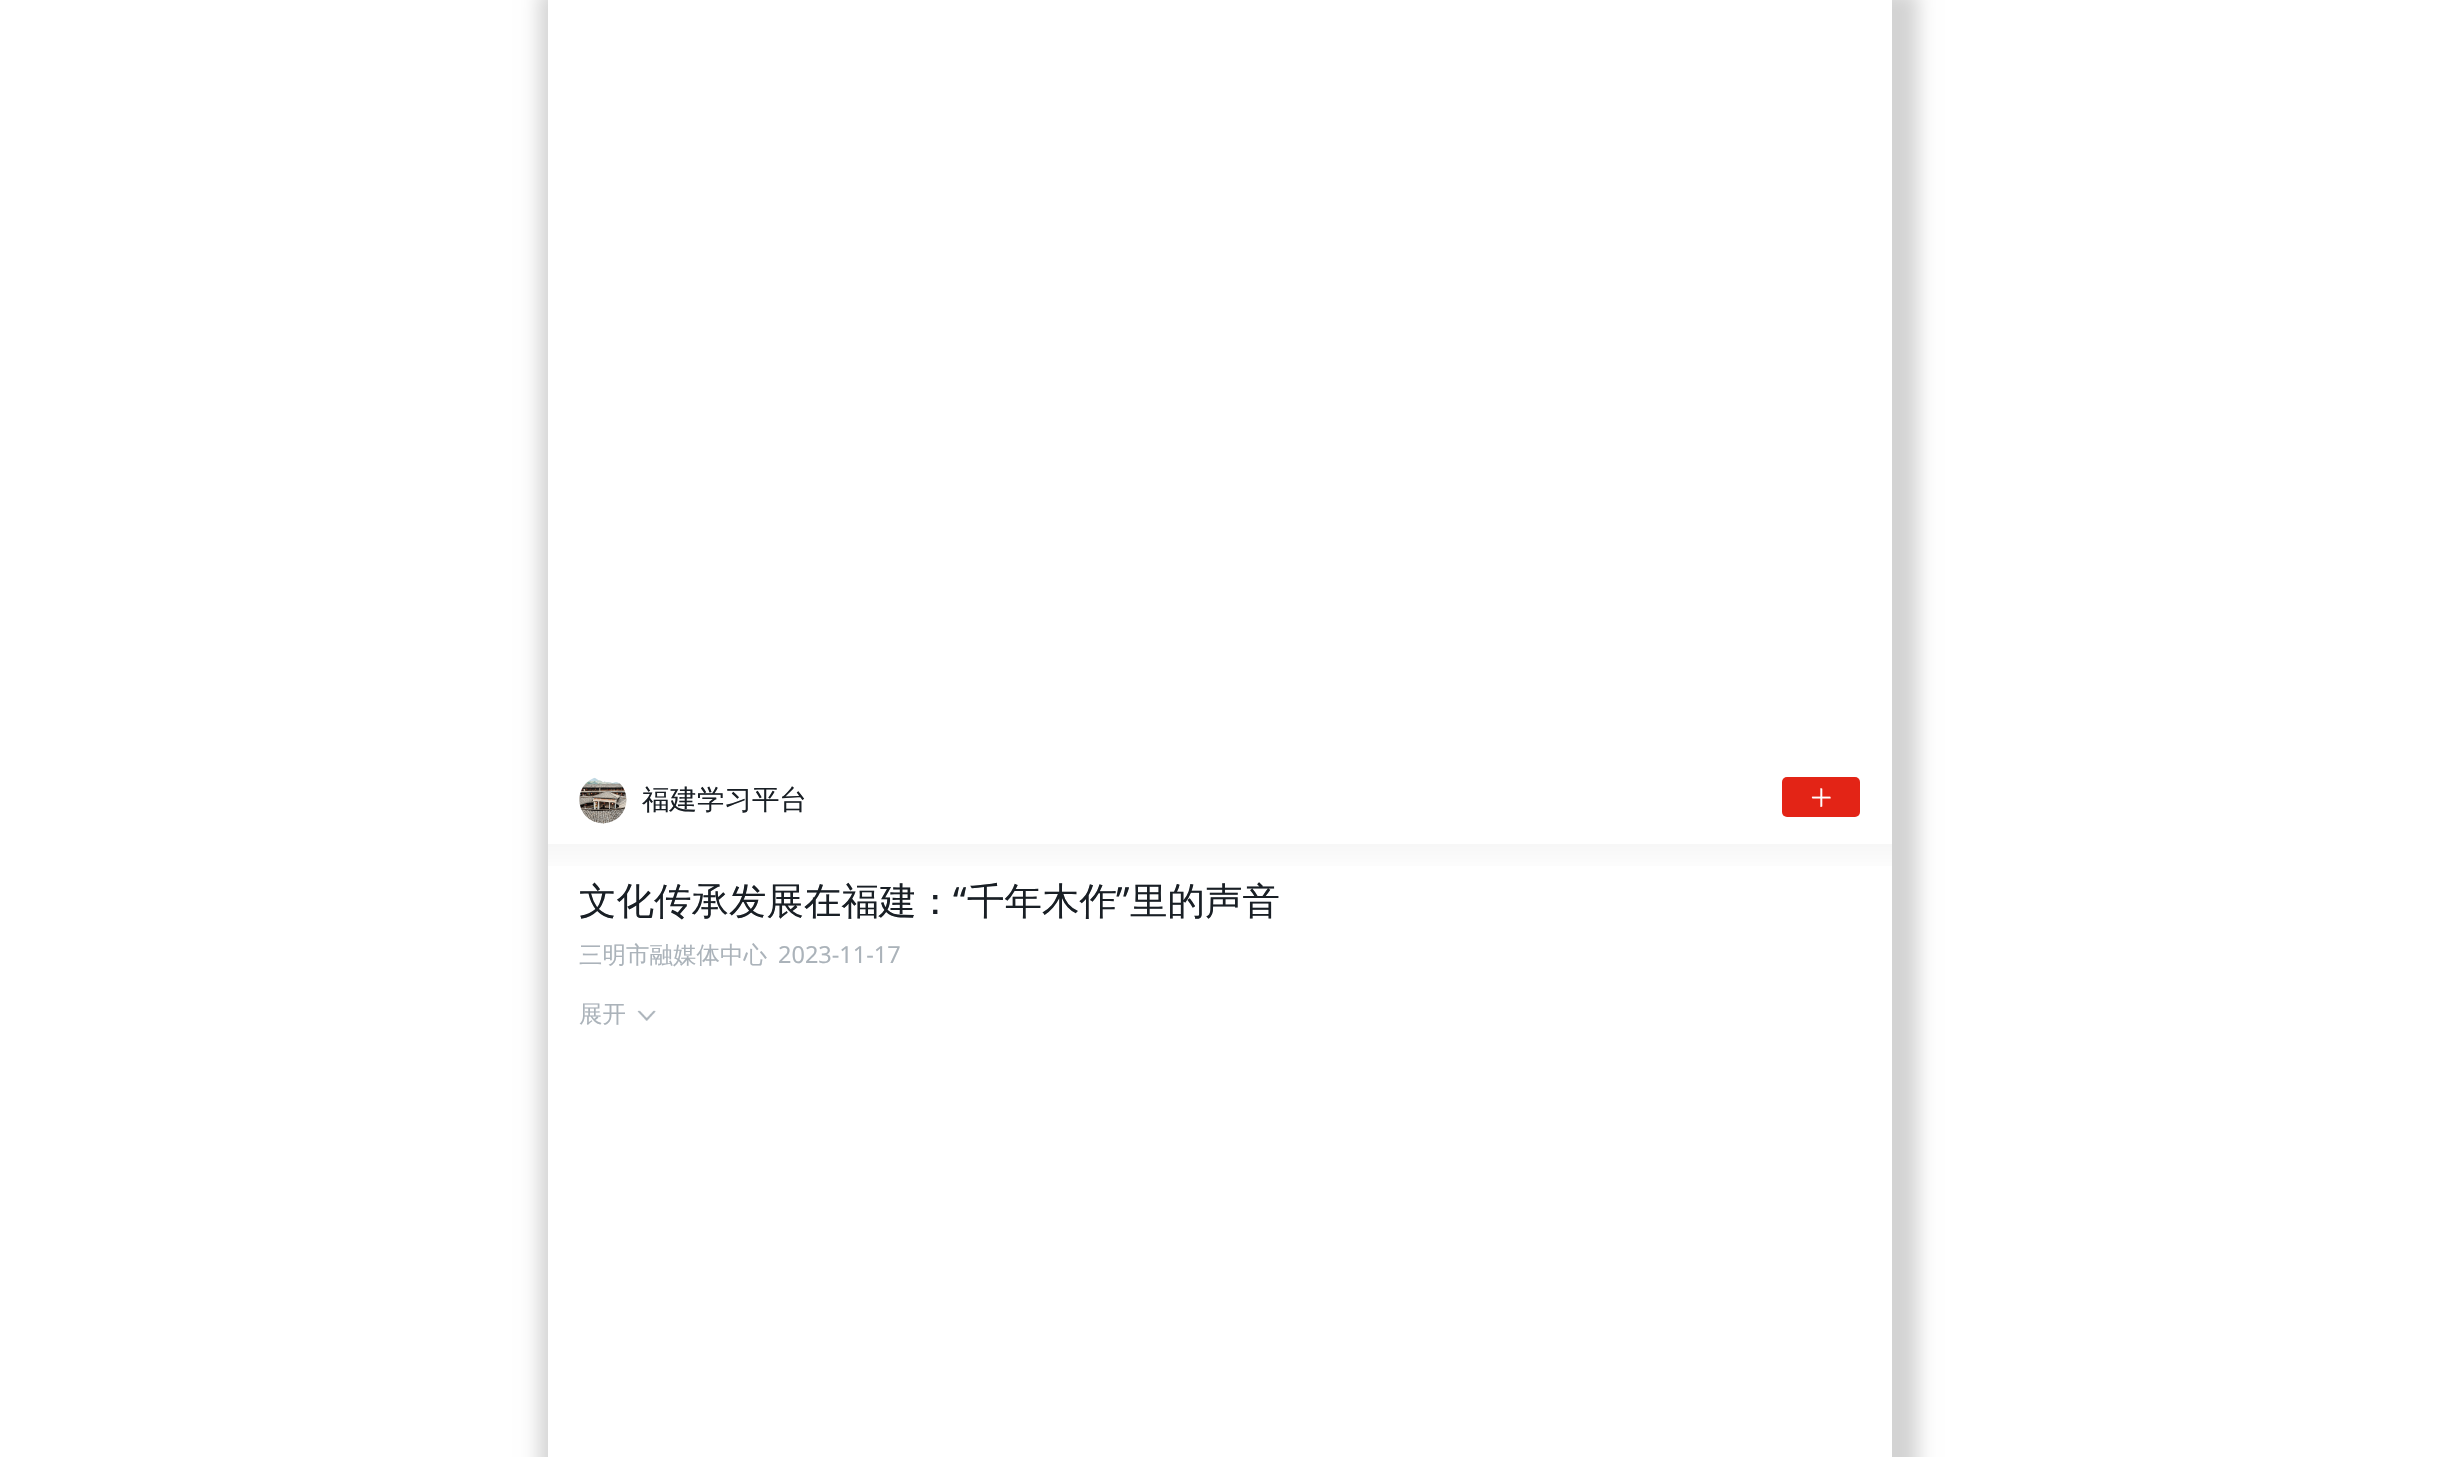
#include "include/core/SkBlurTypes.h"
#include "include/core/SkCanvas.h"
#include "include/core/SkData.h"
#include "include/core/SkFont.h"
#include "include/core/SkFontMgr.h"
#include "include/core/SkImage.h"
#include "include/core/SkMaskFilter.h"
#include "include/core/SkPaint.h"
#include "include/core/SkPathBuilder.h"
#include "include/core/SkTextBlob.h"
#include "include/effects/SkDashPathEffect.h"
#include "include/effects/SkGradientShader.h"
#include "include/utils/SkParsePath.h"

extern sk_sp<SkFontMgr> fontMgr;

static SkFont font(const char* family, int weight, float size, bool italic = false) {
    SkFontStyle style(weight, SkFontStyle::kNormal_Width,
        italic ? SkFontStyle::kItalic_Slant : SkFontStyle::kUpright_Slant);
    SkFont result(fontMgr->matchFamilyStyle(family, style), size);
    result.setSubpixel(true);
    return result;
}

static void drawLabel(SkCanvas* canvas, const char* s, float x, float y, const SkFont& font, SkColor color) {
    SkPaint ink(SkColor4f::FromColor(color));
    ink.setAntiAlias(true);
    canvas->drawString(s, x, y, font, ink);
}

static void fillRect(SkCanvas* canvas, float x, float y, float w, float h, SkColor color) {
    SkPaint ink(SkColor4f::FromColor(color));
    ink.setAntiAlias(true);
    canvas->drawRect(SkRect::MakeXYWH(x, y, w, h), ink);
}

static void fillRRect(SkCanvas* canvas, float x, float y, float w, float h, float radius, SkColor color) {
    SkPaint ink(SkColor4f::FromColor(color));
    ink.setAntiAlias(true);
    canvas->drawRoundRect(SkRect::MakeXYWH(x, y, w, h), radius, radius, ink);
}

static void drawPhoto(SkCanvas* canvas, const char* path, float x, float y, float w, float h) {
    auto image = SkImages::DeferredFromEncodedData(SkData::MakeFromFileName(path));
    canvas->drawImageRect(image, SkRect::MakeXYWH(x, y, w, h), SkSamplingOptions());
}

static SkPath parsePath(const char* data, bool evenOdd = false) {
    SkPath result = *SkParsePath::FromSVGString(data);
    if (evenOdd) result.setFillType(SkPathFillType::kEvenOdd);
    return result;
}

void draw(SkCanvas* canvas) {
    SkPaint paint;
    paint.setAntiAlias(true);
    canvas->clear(0xFFFFFFFF);
    canvas->save();
    canvas->clipPath(parsePath("M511 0H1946V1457H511ZM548 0H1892V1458H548Z", true), true);
    paint.setColor(0xFFD3D3D3);
    paint.setMaskFilter(SkMaskFilter::MakeBlur(kNormal_SkBlurStyle, 9));
    canvas->drawRect(SkRect::MakeXYWH(539, -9, 1379, 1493), paint);
    paint.setMaskFilter(nullptr);
    canvas->restore();
    fillRect(canvas, 1891, 0, 1, 1185, 0xFFFFFFFF);
    drawPhoto(canvas, "assets/img1.png", 579, 777, 48, 47);
    SkFont font1 = font("WenQuanYi Zen Hei", 500, 27.5f);
    drawLabel(canvas, "福建学习平台", 642, 809, font1, 0xFF191F25);
    fillRRect(canvas, 1782, 777, 78, 40, 5, 0xFFE32416);
    drawPhoto(canvas, "assets/img2.png", 1811, 788, 20, 19);
    {
        const SkColor colors[] = {0xFFF7F7F7, 0xFFFFFFFF};
        const float stops[] = {0, 0.14f};
        const SkPoint ends[] = {{1220, 845}, {1220, 1066}};
        paint.setShader(SkGradientShader::MakeLinear(ends, colors, stops, 2, SkTileMode::kClamp));
        paint.setAlpha(255);
    }
    canvas->drawRect(SkRect::MakeXYWH(548, 846, 1344, 20), paint);
    fillRect(canvas, 548, 844, 1344, 2, 0xFFF7F7F7);
    SkFont font2 = font("WenQuanYi Zen Hei", 500, 37.5f);
    drawLabel(canvas, "文化传承发展在福建：", 579, 914, font2, 0xFF191F25);
    SkFont font3 = font("Noto Sans", 400, 37.5f);
    drawLabel(canvas, "“", 953, 914, font3, 0xFF191F25);
    drawLabel(canvas, "千年木作", 967, 914, font2, 0xFF191F25);
    drawLabel(canvas, "”", 1116, 914, font3, 0xFF191F25);
    drawLabel(canvas, "里的声音", 1130, 914, font2, 0xFF191F25);
    SkFont font4 = font("WenQuanYi Zen Hei", 500, 23.5f);
    drawLabel(canvas, "三明市融媒体中心", 579, 963, font4, 0xFFABB3BA);
    SkFont font5 = font("Noto Sans", 400, 23.5f);
    drawLabel(canvas, "2023-11-17", 778, 963, font5, 0xFFABB3BA);
    drawLabel(canvas, "展开", 579, 1022, font4, 0xFFABB3BA);
    drawPhoto(canvas, "assets/img3.png", 637, 1010, 19, 11);
}
